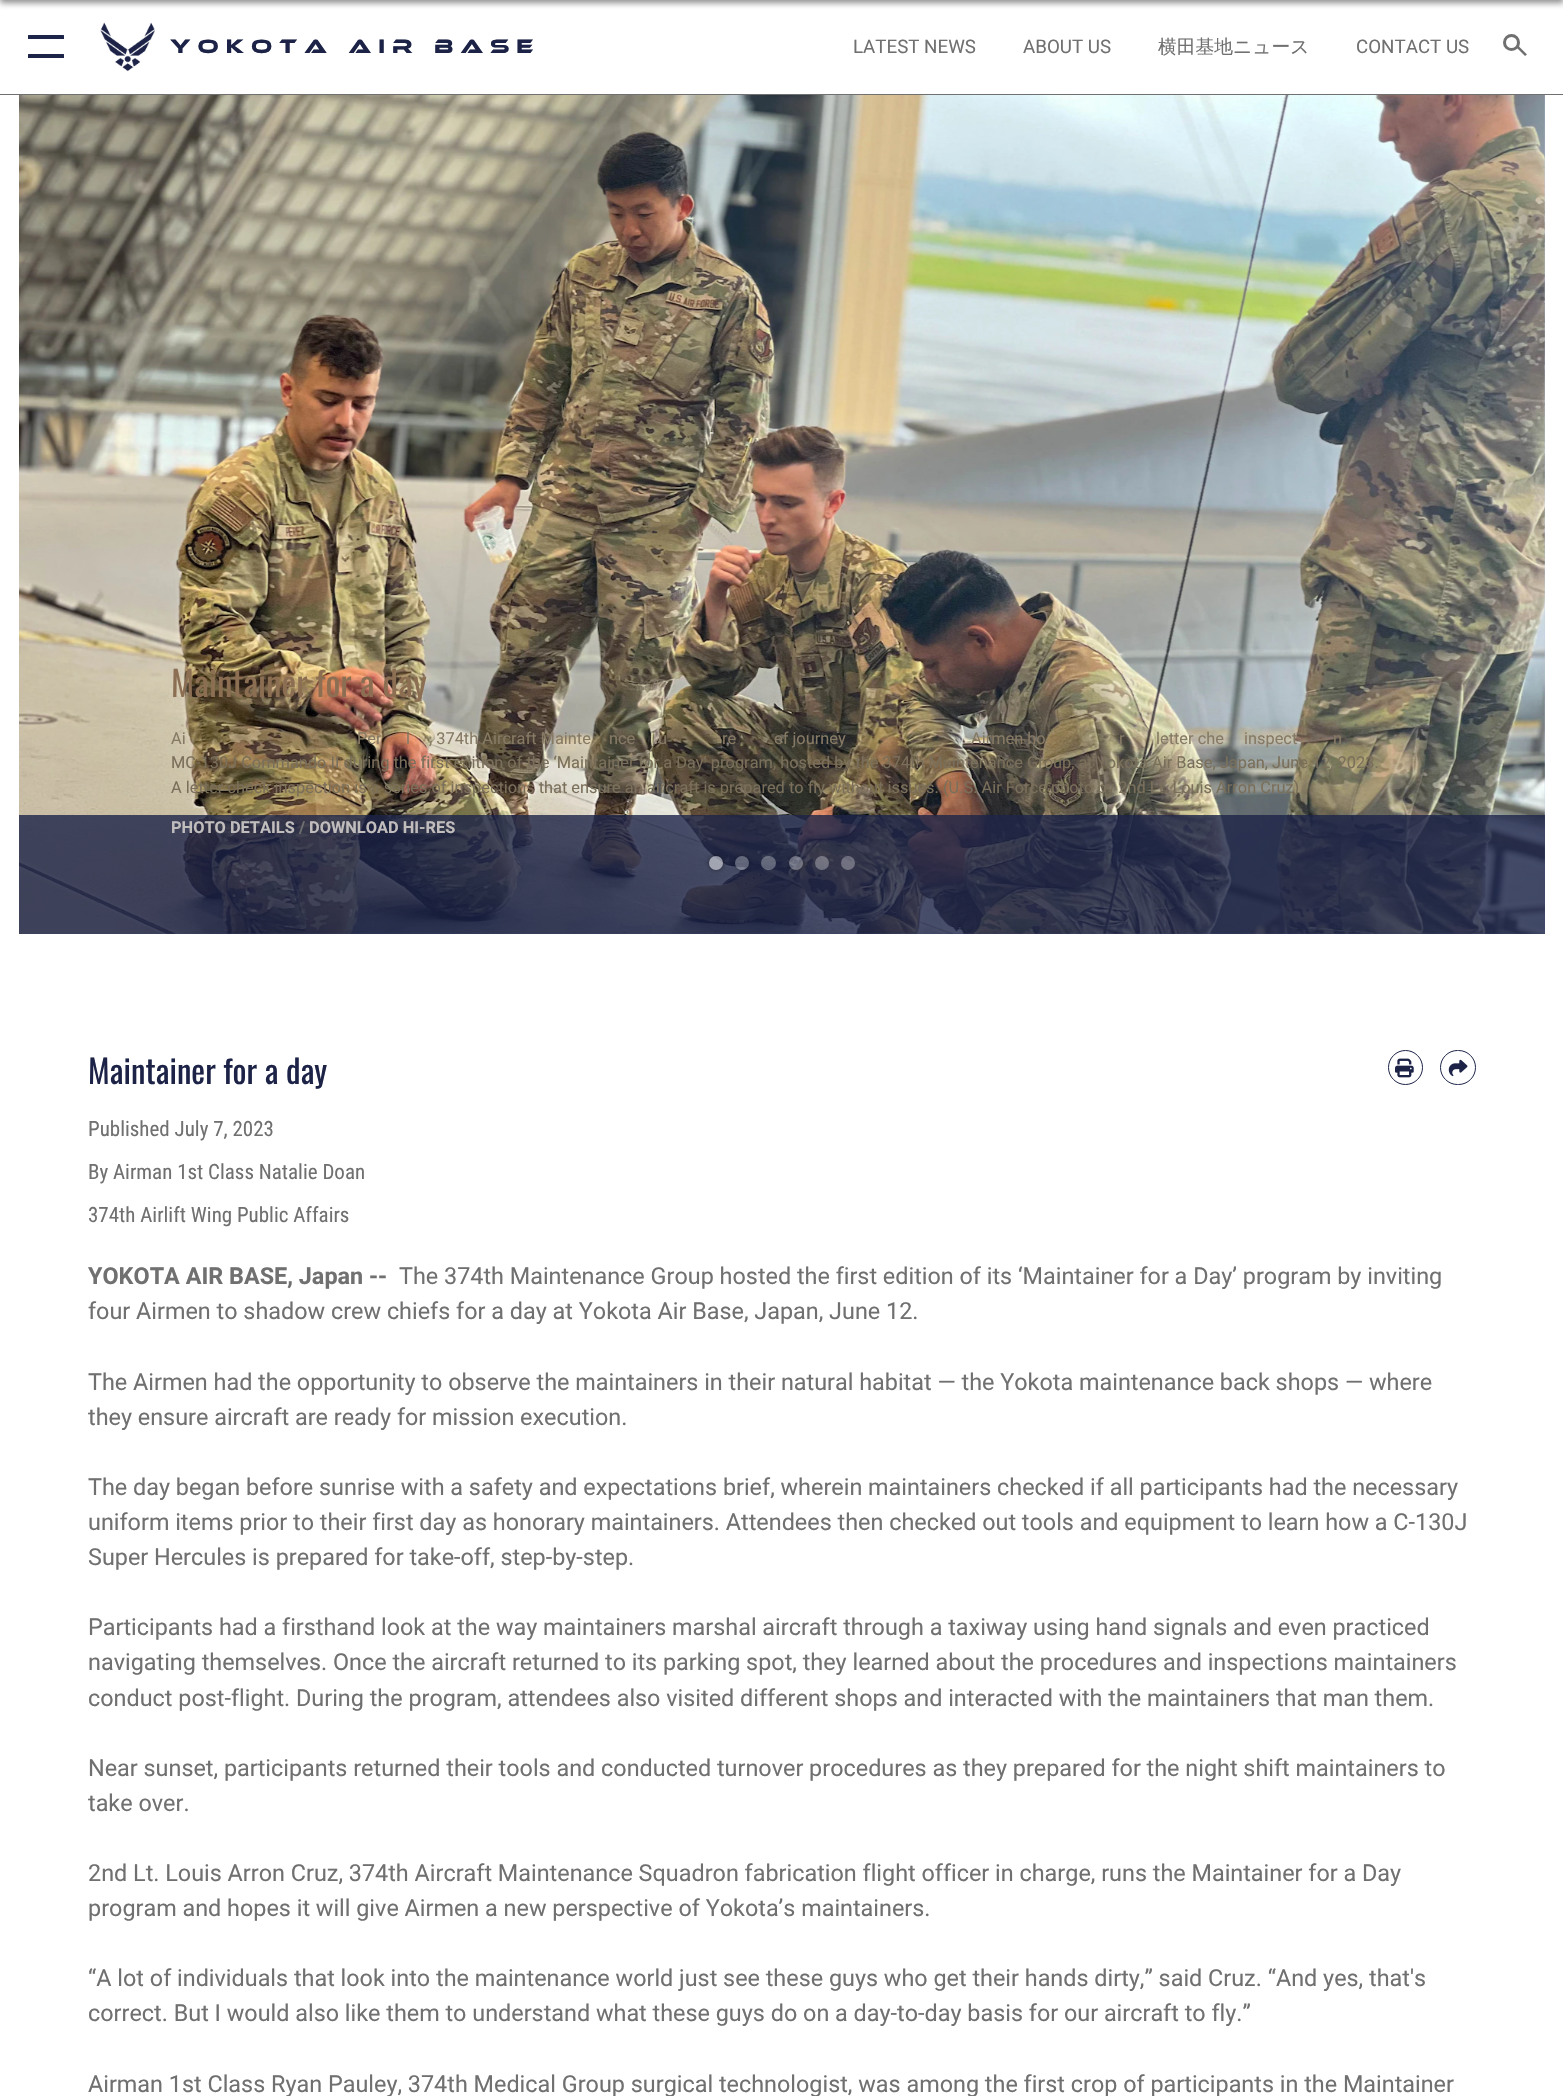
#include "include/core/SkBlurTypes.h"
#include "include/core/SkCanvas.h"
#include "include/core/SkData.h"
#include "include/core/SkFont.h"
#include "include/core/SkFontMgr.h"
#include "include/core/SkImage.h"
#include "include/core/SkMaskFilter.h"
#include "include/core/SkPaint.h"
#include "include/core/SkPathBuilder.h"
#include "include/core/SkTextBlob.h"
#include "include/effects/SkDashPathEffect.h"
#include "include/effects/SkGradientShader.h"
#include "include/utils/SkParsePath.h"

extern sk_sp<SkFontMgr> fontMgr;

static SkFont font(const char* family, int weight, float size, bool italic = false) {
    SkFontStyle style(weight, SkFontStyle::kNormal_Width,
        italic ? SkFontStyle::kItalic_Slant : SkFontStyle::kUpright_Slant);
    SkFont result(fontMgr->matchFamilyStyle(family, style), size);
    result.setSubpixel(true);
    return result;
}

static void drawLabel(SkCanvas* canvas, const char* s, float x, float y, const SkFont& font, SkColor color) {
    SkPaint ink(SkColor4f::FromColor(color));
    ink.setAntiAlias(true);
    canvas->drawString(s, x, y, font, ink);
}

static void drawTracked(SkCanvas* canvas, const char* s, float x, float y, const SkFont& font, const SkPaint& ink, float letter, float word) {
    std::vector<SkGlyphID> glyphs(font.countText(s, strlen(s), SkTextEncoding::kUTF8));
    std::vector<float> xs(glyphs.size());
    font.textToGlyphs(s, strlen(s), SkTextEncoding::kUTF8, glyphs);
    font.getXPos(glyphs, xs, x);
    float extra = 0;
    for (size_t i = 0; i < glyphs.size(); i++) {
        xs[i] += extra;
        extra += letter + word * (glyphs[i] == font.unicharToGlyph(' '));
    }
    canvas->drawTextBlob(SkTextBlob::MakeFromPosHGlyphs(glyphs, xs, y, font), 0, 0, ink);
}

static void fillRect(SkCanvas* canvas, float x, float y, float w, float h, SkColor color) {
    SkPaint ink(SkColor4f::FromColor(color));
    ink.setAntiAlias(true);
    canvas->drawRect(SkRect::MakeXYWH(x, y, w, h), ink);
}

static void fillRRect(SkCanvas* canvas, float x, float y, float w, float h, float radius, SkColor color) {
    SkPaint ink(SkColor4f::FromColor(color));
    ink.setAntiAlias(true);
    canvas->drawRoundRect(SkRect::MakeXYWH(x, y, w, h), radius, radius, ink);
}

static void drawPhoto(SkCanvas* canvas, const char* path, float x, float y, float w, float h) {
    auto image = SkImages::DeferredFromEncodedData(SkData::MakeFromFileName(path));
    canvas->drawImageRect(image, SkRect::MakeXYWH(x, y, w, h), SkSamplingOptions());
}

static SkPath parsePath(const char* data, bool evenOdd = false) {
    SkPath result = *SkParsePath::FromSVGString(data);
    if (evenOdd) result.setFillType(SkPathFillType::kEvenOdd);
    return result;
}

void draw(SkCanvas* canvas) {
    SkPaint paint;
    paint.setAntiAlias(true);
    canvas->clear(0xFFFFFFFF);
    paint.setColor(0x801A1A1A);
    paint.setMaskFilter(SkMaskFilter::MakeBlur(kNormal_SkBlurStyle, 3));
    canvas->drawRect(SkRect::MakeXYWH(0, -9, 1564, 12), paint);
    paint.setMaskFilter(nullptr);
    fillRect(canvas, 0, 94, 1563, 1, 0xFF707070);
    fillRRect(canvas, 28, 35, 36, 4, 0.5f, 0xFF1C2449);
    fillRRect(canvas, 28, 54, 36, 4, 0.5f, 0xFF1C2449);
    drawPhoto(canvas, "assets/img1.png", 100, 22, 55, 50);
    SkFont font1 = font("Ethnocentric", 400, 20);
    paint.setColor(0xFF1C2347);
    drawTracked(canvas, "Yokota Air Base", 170, 53, font1, paint, 7, 0);
    SkFont font2 = font("Roboto", 400, 18.75f);
    drawLabel(canvas, "LATEST NEWS", 853, 53, font2, 0xFF707070);
    drawLabel(canvas, "ABOUT US", 1023, 53, font2, 0xFF707070);
    SkFont font3 = font("WenQuanYi Zen Hei", 500, 18.75f);
    drawLabel(canvas, "横田基地ニュース", 1158, 53, font3, 0xFF707070);
    drawLabel(canvas, "CONTACT US", 1356, 53, font2, 0xFF707070);
    paint.setStroke(true);
    paint.setStrokeWidth(3);
    paint.setColor(0xFF707070);
    canvas->drawCircle(1511.5f, 42.5f, 7, paint);
    paint.setStroke(false);
    canvas->drawPath(parsePath("M1518 45.5L1527 54.5L1525 56L1516.5 47.5Z"), paint);
    fillRect(canvas, 19, 95, 1526, 839, 0xFFB5C7E3);
    drawPhoto(canvas, "assets/img2.png", 19, 95, 1526, 839);
    SkFont font4 = font("Oswald", 400, 35);
    drawLabel(canvas, "Maintainer for a day", 171, 697, font4, 0xFF8C6F53);
    SkFont font5 = font("Roboto", 400, 16.38f);
    drawLabel(canvas, "Ai", 171, 744, font5, 0xFF867A65);
    drawLabel(canvas, "Per", 357, 744, font5, 0xFF867A65);
    drawLabel(canvas, "l", 406, 744, font5, 0xFF867A65);
    drawLabel(canvas, ", 374th Aircraft Mainte", 429, 744, font5, 0xFF867A65);
    drawLabel(canvas, "nce", 609, 744, font5, 0xFF867A65);
    drawLabel(canvas, "u", 658, 744, font5, 0xFF867A65);
    drawLabel(canvas, "re", 722, 744, font5, 0xFF867A65);
    drawLabel(canvas, "ef journey", 774, 744, font5, 0xFF867A65);
    drawLabel(canvas, "Airmen ho", 971, 744, font5, 0xFF867A65);
    drawLabel(canvas, "r", 1119, 744, font5, 0xFF867A65);
    drawLabel(canvas, "letter che", 1156, 744, font5, 0xFF867A65);
    drawLabel(canvas, "inspect", 1244, 744, font5, 0xFF867A65);
    drawLabel(canvas, "n", 1333, 744, font5, 0xFF867A65);
    drawLabel(canvas, "MC-130J Commando II during the first edition of the ‘Maintainer for a Day’ program, hosted by the 374th Maintenance Group, at Yokota Air Base, Japan, June 12, 2023.", 171, 768, font5, 0xFF7A6F5A);
    drawLabel(canvas, "A letter check inspection is a series of inspections that ensure an aircraft is prepared to fly without issues. (U.S. Air Force photo by 2nd Lt. Louis Arron Cruz)", 171, 793, font5, 0xFF7A6F5A);
    fillRect(canvas, 19, 815, 1526, 119, 0xCC1C2347);
    SkFont font6 = font("Roboto", 700, 16.38f);
    drawLabel(canvas, "PHOTO DETAILS", 171, 833, font6, 0xFFC1BDBD);
    drawLabel(canvas, "/", 299, 833, font6, 0xFF707070);
    drawLabel(canvas, "DOWNLOAD HI-RES", 309, 833, font6, 0xFFC1BDBD);
    canvas->save();
    canvas->clipPath(parsePath("M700 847H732V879H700ZM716 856C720 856 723 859 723 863C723 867 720 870 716 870C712 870 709 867 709 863C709 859 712 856 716 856Z", true), true);
    paint.setColor(0x80000000);
    paint.setMaskFilter(SkMaskFilter::MakeBlur(kNormal_SkBlurStyle, 2.5f));
    canvas->drawRoundRect(SkRect::MakeXYWH(709, 856, 14, 14), 7, 7, paint);
    paint.setMaskFilter(nullptr);
    canvas->restore();
    paint.setColor(0x80FFFFFF);
    canvas->drawCircle(716, 863, 7, paint);
    canvas->save();
    canvas->clipPath(parsePath("M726 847H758V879H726ZM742 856C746 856 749 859 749 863C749 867 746 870 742 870C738 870 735 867 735 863C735 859 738 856 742 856Z", true), true);
    paint.setColor(0x4D000000);
    paint.setMaskFilter(SkMaskFilter::MakeBlur(kNormal_SkBlurStyle, 2.5f));
    canvas->drawRoundRect(SkRect::MakeXYWH(735, 856, 14, 14), 7, 7, paint);
    paint.setMaskFilter(nullptr);
    canvas->restore();
    paint.setColor(0x4DFFFFFF);
    canvas->drawCircle(742, 863, 7, paint);
    fillRRect(canvas, 761, 856, 15, 14, 7, 0x4DFFFFFF);
    canvas->save();
    canvas->clipPath(parsePath("M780 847H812V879H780ZM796 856C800 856 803 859 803 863C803 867 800 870 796 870C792 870 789 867 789 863C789 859 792 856 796 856Z", true), true);
    paint.setColor(0x4D000000);
    paint.setMaskFilter(SkMaskFilter::MakeBlur(kNormal_SkBlurStyle, 2.5f));
    canvas->drawRoundRect(SkRect::MakeXYWH(789, 856, 14, 14), 7, 7, paint);
    paint.setMaskFilter(nullptr);
    canvas->restore();
    paint.setColor(0x4DFFFFFF);
    canvas->drawCircle(796, 863, 7, paint);
    canvas->drawCircle(822, 863, 7, paint);
    canvas->drawCircle(848, 863, 7, paint);
    SkFont font7 = font("Oswald", 400, 32.75f);
    drawLabel(canvas, "Maintainer for a day", 88, 1084, font7, 0xFF1C2347);
    paint.setStroke(true);
    paint.setStrokeWidth(1);
    paint.setColor(0xFF1C2347);
    canvas->drawCircle(1405.5f, 1067.5f, 17, paint);
    drawPhoto(canvas, "assets/img3.png", 1395, 1058, 19, 20);
    canvas->drawRoundRect(SkRect::MakeXYWH(1440.5f, 1050.5f, 35, 34), 17, 17, paint);
    drawPhoto(canvas, "assets/img4.png", 1448, 1059, 20, 18);
    SkFont font8 = font("Roboto Condensed", 400, 21);
    drawLabel(canvas, "Published July 7, 2023", 88, 1136, font8, 0xFF707070);
    drawLabel(canvas, "By Airman 1st Class Natalie Doan", 88, 1179, font8, 0xFF707070);
    drawLabel(canvas, "374th Airlift Wing Public Affairs", 88, 1222, font8, 0xFF707070);
    SkFont font9 = font("Roboto", 400, 23.4f);
    drawLabel(canvas, "The 374th Maintenance Group hosted the first edition of its ‘Maintainer for a Day’ program by inviting", 399, 1284, font9, 0xFF707070);
    drawLabel(canvas, "four Airmen to shadow crew chiefs for a day at Yokota Air Base, Japan, June 12.", 88, 1319, font9, 0xFF707070);
    drawLabel(canvas, "The Airmen had the opportunity to observe the maintainers in their natural habitat — the Yokota maintenance back shops — where", 88, 1390, font9, 0xFF707070);
    drawLabel(canvas, "they ensure aircraft are ready for mission execution.", 88, 1425, font9, 0xFF707070);
    drawLabel(canvas, "The day began before sunrise with a safety and expectations brief, wherein maintainers checked if all participants had the necessary", 88, 1495, font9, 0xFF707070);
    drawLabel(canvas, "uniform items prior to their first day as honorary maintainers. Attendees then checked out tools and equipment to learn how a C-130J", 88, 1530, font9, 0xFF707070);
    drawLabel(canvas, "Super Hercules is prepared for take-off, step-by-step.", 88, 1565, font9, 0xFF707070);
    drawLabel(canvas, "Participants had a firsthand look at the way maintainers marshal aircraft through a taxiway using hand signals and even practiced", 88, 1635, font9, 0xFF707070);
    drawLabel(canvas, "navigating themselves. Once the aircraft returned to its parking spot, they learned about the procedures and inspections maintainers", 88, 1670, font9, 0xFF707070);
    drawLabel(canvas, "conduct post-flight. During the program, attendees also visited different shops and interacted with the maintainers that man them.", 88, 1706, font9, 0xFF707070);
    drawLabel(canvas, "Near sunset, participants returned their tools and conducted turnover procedures as they prepared for the night shift maintainers to", 88, 1776, font9, 0xFF707070);
    drawLabel(canvas, "take over.", 88, 1811, font9, 0xFF707070);
    drawLabel(canvas, "2nd Lt. Louis Arron Cruz, 374th Aircraft Maintenance Squadron fabrication flight officer in charge, runs the Maintainer for a Day", 88, 1881, font9, 0xFF707070);
    drawLabel(canvas, "program and hopes it will give Airmen a new perspective of Yokota’s maintainers.", 88, 1916, font9, 0xFF707070);
    drawLabel(canvas, "“A lot of individuals that look into the maintenance world just see these guys who get their hands dirty,” said Cruz. “And yes, that's", 88, 1986, font9, 0xFF707070);
    drawLabel(canvas, "correct. But I would also like them to understand what these guys do on a day-to-day basis for our aircraft to fly.”", 88, 2021, font9, 0xFF707070);
    drawLabel(canvas, "Airman 1st Class Ryan Pauley, 374th Medical Group surgical technologist, was among the first crop of participants in the Maintainer", 88, 2092, font9, 0xFF707070);
    SkFont font10 = font("Roboto", 700, 23.4f);
    drawLabel(canvas, "YOKOTA AIR BASE, Japan --", 88, 1284, font10, 0xFF707070);
}
